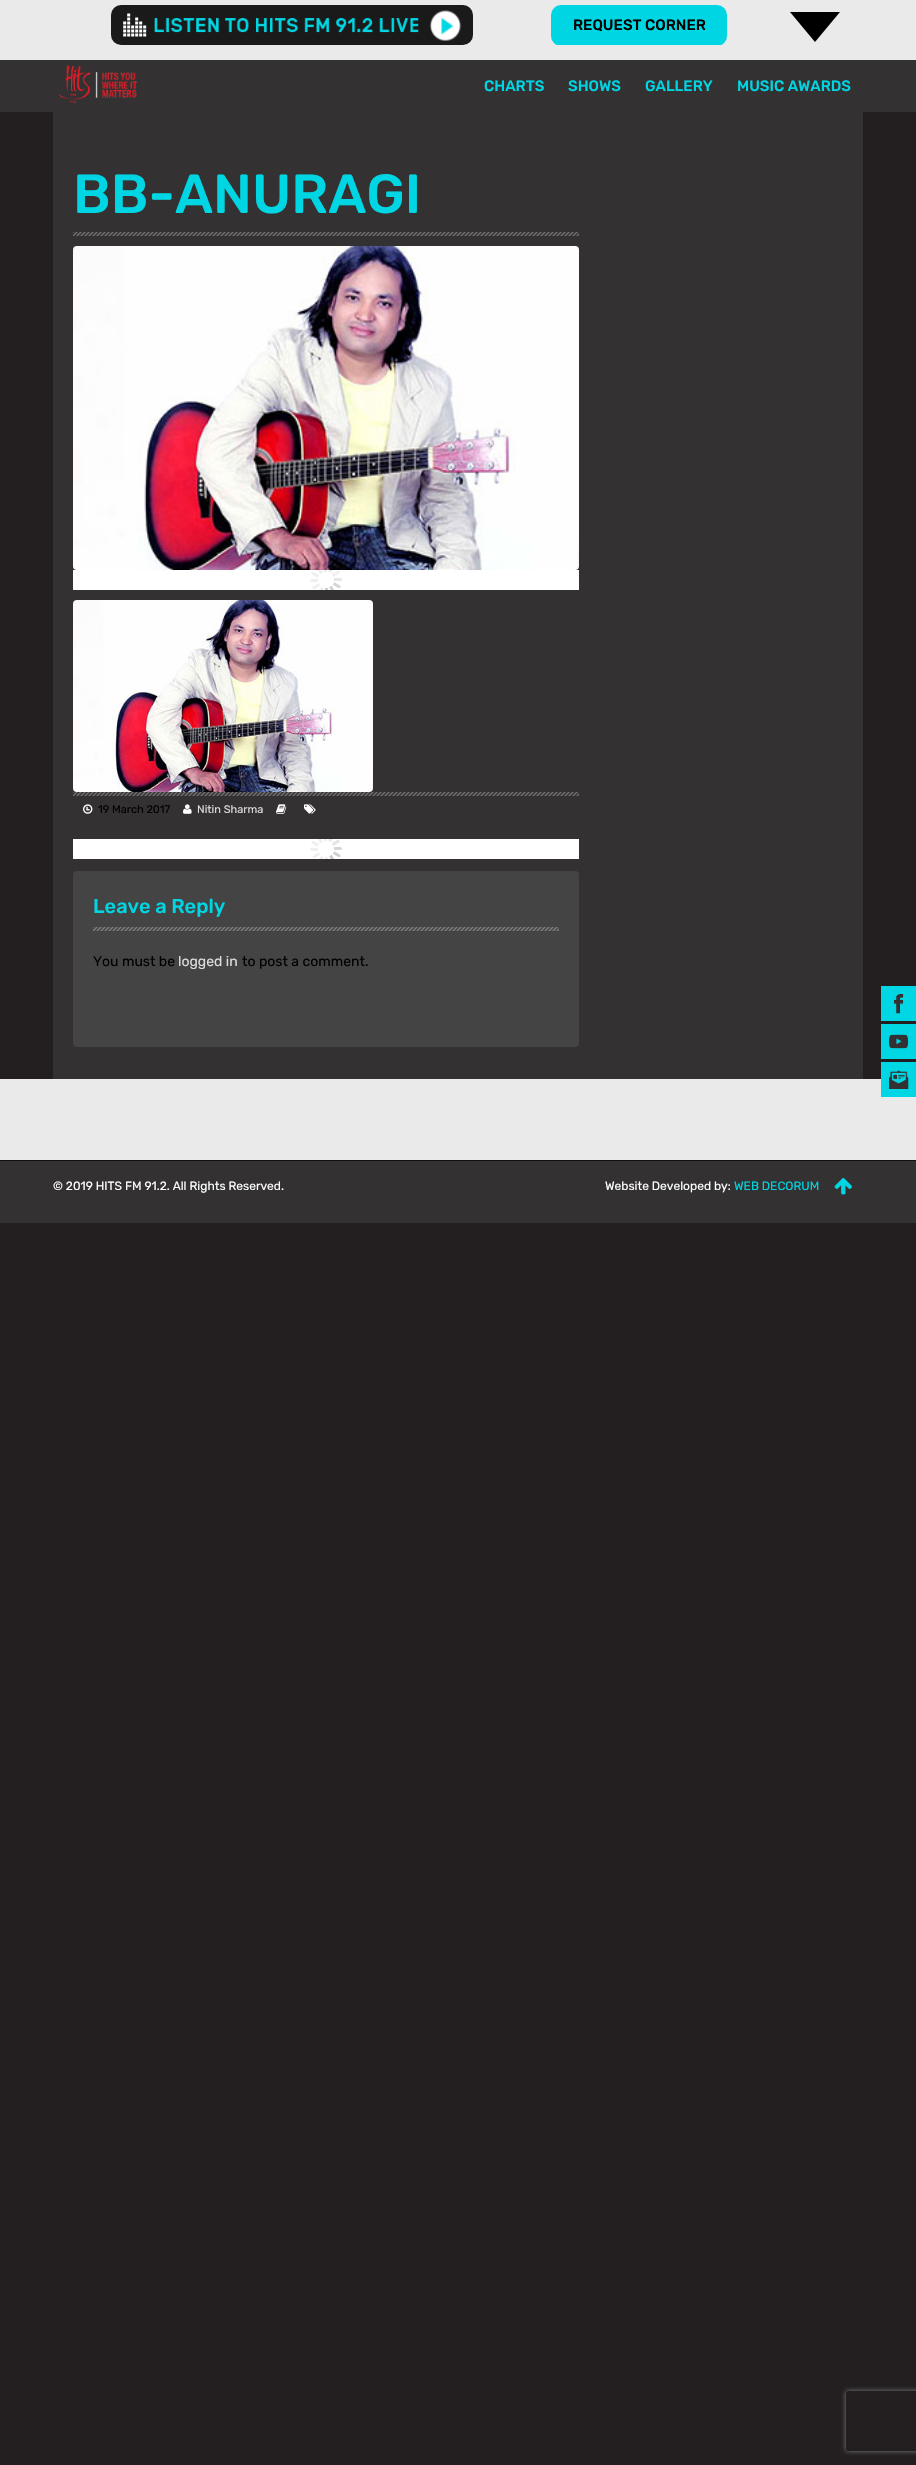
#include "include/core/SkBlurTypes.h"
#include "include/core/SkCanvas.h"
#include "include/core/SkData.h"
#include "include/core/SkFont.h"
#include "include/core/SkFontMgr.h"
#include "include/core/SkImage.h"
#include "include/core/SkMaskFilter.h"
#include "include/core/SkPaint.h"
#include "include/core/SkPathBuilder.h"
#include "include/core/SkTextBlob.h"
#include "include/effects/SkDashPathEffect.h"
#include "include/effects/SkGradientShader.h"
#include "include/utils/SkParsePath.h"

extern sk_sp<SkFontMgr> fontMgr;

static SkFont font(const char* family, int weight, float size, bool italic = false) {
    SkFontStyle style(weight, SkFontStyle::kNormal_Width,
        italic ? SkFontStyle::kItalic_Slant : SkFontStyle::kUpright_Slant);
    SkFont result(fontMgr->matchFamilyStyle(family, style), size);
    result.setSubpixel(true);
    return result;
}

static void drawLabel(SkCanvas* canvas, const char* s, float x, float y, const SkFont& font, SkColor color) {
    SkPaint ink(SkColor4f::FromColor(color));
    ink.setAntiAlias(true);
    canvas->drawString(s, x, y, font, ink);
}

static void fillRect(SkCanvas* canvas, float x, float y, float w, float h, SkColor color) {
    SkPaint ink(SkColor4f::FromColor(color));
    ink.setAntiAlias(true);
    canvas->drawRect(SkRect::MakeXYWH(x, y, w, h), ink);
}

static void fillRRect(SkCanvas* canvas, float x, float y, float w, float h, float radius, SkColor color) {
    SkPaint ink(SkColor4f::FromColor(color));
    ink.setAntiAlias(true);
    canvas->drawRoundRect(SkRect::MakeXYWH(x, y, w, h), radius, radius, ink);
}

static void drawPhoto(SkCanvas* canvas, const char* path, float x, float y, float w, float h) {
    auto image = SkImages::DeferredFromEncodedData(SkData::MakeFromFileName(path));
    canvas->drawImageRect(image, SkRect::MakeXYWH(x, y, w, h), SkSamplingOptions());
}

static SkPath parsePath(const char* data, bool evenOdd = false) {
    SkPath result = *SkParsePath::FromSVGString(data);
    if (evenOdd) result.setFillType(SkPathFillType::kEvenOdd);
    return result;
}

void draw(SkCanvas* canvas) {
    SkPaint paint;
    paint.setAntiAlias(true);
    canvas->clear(0xFF231F20);
    fillRect(canvas, 0, 0, 916, 60, 0xFFEAEAEA);
    fillRRect(canvas, 111, 5, 362, 40, 10, 0xFF1A1A1A);
    drawPhoto(canvas, "assets/img1.png", 123, 13, 24, 24);
    drawPhoto(canvas, "assets/img2.png", 430, 10, 32, 31);
    drawPhoto(canvas, "assets/img3.png", 154, 18, 265, 15);
    canvas->save();
    canvas->clipRect(SkRect::MakeXYWH(509, 5, 272, 40));
    fillRRect(canvas, 551, 5, 176, 41, 10, 0xFF00D6E3);
    canvas->restore();
    SkFont font1 = font("Rubik", 500, 15);
    drawLabel(canvas, "REQUEST CORNER", 573, 30, font1, 0xFF000000);
    paint.setColor(0xFF000000);
    canvas->drawPath(parsePath("M790 12H840L815 42Z"), paint);
    fillRect(canvas, 0, 60, 916, 52, 0xFF333132);
    drawPhoto(canvas, "assets/img4.png", 58, 65, 80, 38);
    drawLabel(canvas, "CHARTS", 484, 91, font1, 0xFF00D6E3);
    drawLabel(canvas, "SHOWS", 568, 91, font1, 0xFF00D6E3);
    drawLabel(canvas, "GALLERY", 645, 91, font1, 0xFF00D6E3);
    drawLabel(canvas, "MUSIC AWARDS", 737, 91, font1, 0xFF00D6E3);
    fillRect(canvas, 53, 112, 810, 967, 0xFF333132);
    drawPhoto(canvas, "assets/img5.png", 73, 232, 506, 4);
    SkFont font2 = font("Rubik", 500, 55);
    drawLabel(canvas, "BB-ANURAGI", 73, 213, font2, 0xFF00D6E3);
    drawPhoto(canvas, "assets/img6.png", 73, 246, 506, 324);
    fillRect(canvas, 73, 570, 506, 20, 0xFFFFFFFF);
    drawPhoto(canvas, "assets/img7.png", 310, 570, 32, 20);
    drawPhoto(canvas, "assets/img8.png", 73, 600, 300, 192);
    drawPhoto(canvas, "assets/img5.png", 73, 792, 506, 4);
    drawPhoto(canvas, "assets/img9.png", 83, 804, 10, 10);
    SkFont font3 = font("Rubik", 400, 11);
    drawLabel(canvas, "19 March 2017", 98, 813, font3, 0xFF000000);
    drawPhoto(canvas, "assets/img10.png", 183, 804, 9, 10);
    drawLabel(canvas, "Nitin Sharma", 197, 813, font3, 0xFFDDDDDD);
    drawPhoto(canvas, "assets/img11.png", 276, 804, 11, 10);
    drawPhoto(canvas, "assets/img12.png", 304, 804, 12, 10);
    fillRect(canvas, 73, 839, 506, 20, 0xFFFFFFFF);
    drawPhoto(canvas, "assets/img13.png", 310, 839, 32, 20);
    fillRRect(canvas, 73, 871, 506, 176, 4, 0xFF444444);
    drawPhoto(canvas, "assets/img14.png", 93, 927, 466, 4);
    SkFont font4 = font("Rubik", 500, 20);
    drawLabel(canvas, "Leave a Reply", 93, 913, font4, 0xFF00D6E3);
    SkFont font5 = font("Rubik", 400, 14);
    drawLabel(canvas, "You must be", 93, 966, font5, 0xFF000000);
    drawLabel(canvas, "logged in", 178, 966, font5, 0xFFDDDDDD);
    drawLabel(canvas, "to post a comment.", 242, 966, font5, 0xFF000000);
    drawPhoto(canvas, "assets/img15.png", 881, 986, 35, 35);
    drawPhoto(canvas, "assets/img16.png", 881, 1024, 35, 35);
    fillRect(canvas, 0, 1080, 916, 80, 0xFFEAEAEA);
    drawPhoto(canvas, "assets/img17.png", 881, 1062, 35, 35);
    fillRect(canvas, 0, 1079, 881, 1, 0xFFECECEC);
    fillRect(canvas, 0, 1161, 916, 62, 0xFF333132);
    fillRect(canvas, 0, 1160, 916, 1, 0xFF111111);
    SkFont font6 = font("Rubik", 400, 12);
    drawLabel(canvas, "© 2019 HITS FM 91.2. All Rights Reserved.", 53, 1190, font6, 0xFFFFFFFF);
    drawLabel(canvas, "Website Developed by:", 605, 1190, font6, 0xFFFFFFFF);
    drawLabel(canvas, "WEB DECORUM", 734, 1190, font6, 0xFF00D6E3);
    drawPhoto(canvas, "assets/img18.png", 834, 1178, 18, 17);
    canvas->save();
    canvas->clipPath(parsePath("M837 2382H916V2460H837ZM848 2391H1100C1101 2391 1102 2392 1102 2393V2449C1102 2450 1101 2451 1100 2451H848C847 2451 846 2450 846 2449V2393C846 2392 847 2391 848 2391Z", true), true);
    paint.setColor(0xFF808080);
    paint.setMaskFilter(SkMaskFilter::MakeBlur(kNormal_SkBlurStyle, 2.5f));
    canvas->drawRoundRect(SkRect::MakeXYWH(846, 2391, 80, 60), 2, 2, paint);
    paint.setMaskFilter(nullptr);
    canvas->restore();
}
